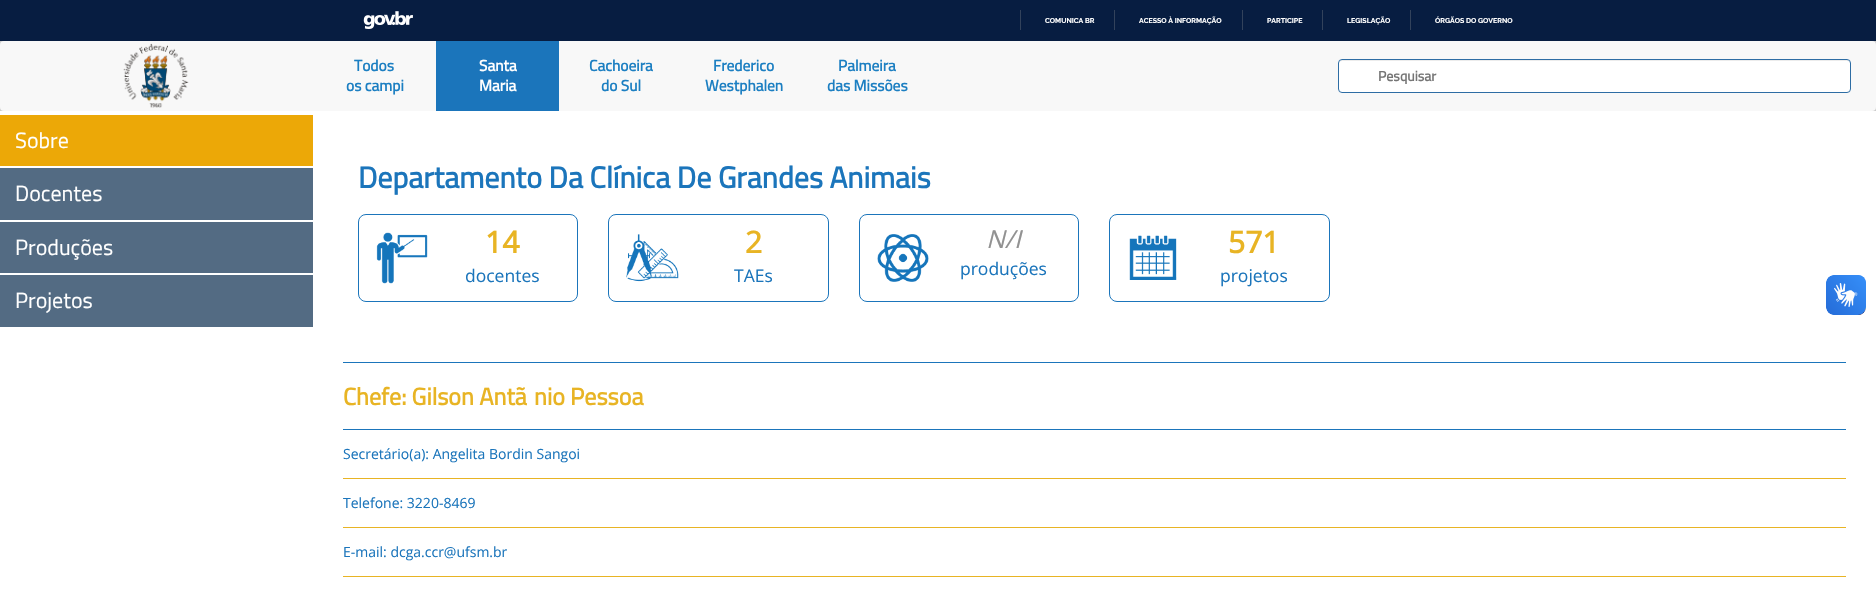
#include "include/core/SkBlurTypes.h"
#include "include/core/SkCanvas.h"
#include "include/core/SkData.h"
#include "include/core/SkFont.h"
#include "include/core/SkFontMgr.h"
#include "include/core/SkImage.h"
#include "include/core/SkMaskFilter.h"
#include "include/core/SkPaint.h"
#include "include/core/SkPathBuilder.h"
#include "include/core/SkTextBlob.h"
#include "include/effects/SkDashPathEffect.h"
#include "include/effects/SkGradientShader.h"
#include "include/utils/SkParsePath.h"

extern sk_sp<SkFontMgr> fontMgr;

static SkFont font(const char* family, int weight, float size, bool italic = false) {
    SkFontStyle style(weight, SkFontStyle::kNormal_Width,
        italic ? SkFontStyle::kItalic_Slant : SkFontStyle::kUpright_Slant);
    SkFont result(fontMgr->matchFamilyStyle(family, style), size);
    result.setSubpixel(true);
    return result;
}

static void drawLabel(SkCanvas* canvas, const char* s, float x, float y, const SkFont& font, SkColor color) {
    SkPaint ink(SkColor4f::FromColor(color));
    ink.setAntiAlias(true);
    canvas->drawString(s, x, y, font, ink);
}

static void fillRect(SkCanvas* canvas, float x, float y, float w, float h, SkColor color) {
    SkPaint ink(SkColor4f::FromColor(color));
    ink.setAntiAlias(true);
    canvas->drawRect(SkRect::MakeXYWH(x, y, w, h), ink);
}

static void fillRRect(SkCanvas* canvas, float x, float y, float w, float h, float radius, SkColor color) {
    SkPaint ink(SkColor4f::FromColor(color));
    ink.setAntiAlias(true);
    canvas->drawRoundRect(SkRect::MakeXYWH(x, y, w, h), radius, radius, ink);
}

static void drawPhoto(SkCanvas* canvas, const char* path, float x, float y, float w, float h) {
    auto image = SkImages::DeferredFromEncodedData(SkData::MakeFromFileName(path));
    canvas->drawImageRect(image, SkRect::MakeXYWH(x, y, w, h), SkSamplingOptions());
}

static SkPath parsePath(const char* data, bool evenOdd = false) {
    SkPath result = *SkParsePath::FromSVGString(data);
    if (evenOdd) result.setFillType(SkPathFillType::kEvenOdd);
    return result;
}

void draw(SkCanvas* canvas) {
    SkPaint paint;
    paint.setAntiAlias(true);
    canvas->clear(0xFFFFFFFF);
    fillRect(canvas, 0, 0, 1876, 41, 0xFF071D41);
    drawPhoto(canvas, "assets/img1.png", 363, 11, 50, 18);
    fillRect(canvas, 1020, 10, 1, 20, 0xFF32425B);
    SkFont font1 = font("Raleway", 700, 7);
    drawLabel(canvas, "COMUNICA BR", 1045, 23, font1, 0xFFFFFFFF);
    fillRect(canvas, 1114, 10, 1, 20, 0xFF32425B);
    drawLabel(canvas, "ACESSO À INFORMAÇÃO", 1139, 23, font1, 0xFFFFFFFF);
    fillRect(canvas, 1242, 10, 1, 20, 0xFF32425B);
    drawLabel(canvas, "PARTICIPE", 1267, 23, font1, 0xFFFFFFFF);
    fillRect(canvas, 1322, 10, 1, 20, 0xFF32425B);
    drawLabel(canvas, "LEGISLAÇÃO", 1347, 23, font1, 0xFFFFFFFF);
    fillRect(canvas, 1410, 10, 1, 20, 0xFF32425B);
    drawLabel(canvas, "ÓRGÃOS DO GOVERNO", 1435, 23, font1, 0xFFFFFFFF);
    fillRect(canvas, 0, 41, 1876, 70, 0xFFCCCCCC);
    fillRRect(canvas, 0, 41, 1876, 70, 4, 0xFFF8F8F8);
    drawPhoto(canvas, "assets/img2.png", 123, 43, 66, 65);
    SkFont font2 = font("Titillium Web", 700, 15.5f);
    drawLabel(canvas, "Todos", 354, 71, font2, 0xFF1C7FC2);
    drawLabel(canvas, "os campi", 346, 91, font2, 0xFF1C7FC2);
    fillRect(canvas, 436, 41, 123, 70, 0xFF1B75BB);
    drawLabel(canvas, "Santa", 479, 71, font2, 0xFFFFFFFF);
    drawLabel(canvas, "Maria", 479, 91, font2, 0xFFFFFFFF);
    drawLabel(canvas, "Cachoeira", 589, 71, font2, 0xFF1C7FC2);
    drawLabel(canvas, "do Sul", 601, 91, font2, 0xFF1C7FC2);
    drawLabel(canvas, "Frederico", 713, 71, font2, 0xFF1C7FC2);
    drawLabel(canvas, "Westphalen", 705, 91, font2, 0xFF1C7FC2);
    drawLabel(canvas, "Palmeira", 838, 71, font2, 0xFF1C7FC2);
    drawLabel(canvas, "das Missões", 827, 91, font2, 0xFF1C7FC2);
    fillRRect(canvas, 1338, 59, 513, 34, 4, 0xFFFFFFFF);
    paint.setColor(0xFFECECEC);
    canvas->drawPath(parsePath("M1342 61H1847C1849 61 1850 62 1850 64V62L1848 60H1342C1340 60 1339 62 1339 64C1339 62 1340 61 1342 61Z"), paint);
    paint.setStroke(true);
    paint.setStrokeWidth(1);
    paint.setColor(0xFF2E6DA4);
    canvas->drawRoundRect(SkRect::MakeXYWH(1338.5f, 59.5f, 512, 33), 3.5f, 3.5f, paint);
    SkFont font3 = font("Titillium Web", 700, 14);
    drawLabel(canvas, "Pesquisar", 1378, 81, font3, 0xFF757575);
    fillRect(canvas, 0, 115, 313, 51, 0xFFECA807);
    SkFont font4 = font("Titillium Web", 400, 22);
    drawLabel(canvas, "Sobre", 15, 148, font4, 0xFFFFFFFF);
    fillRect(canvas, 0, 168, 313, 52, 0xFF536B83);
    drawLabel(canvas, "Docentes", 15, 201, font4, 0xFFFFFFFF);
    fillRect(canvas, 0, 222, 313, 51, 0xFF536B83);
    drawLabel(canvas, "Produções", 15, 255, font4, 0xFFFFFFFF);
    fillRect(canvas, 0, 275, 313, 52, 0xFF536B83);
    drawLabel(canvas, "Projetos", 15, 308, font4, 0xFFFFFFFF);
    SkFont font5 = font("Titillium Web", 700, 30);
    drawLabel(canvas, "Departamento Da Clínica De Grandes Animais", 358, 188, font5, 0xFF1B75BB);
    paint.setColor(0xFF1B75BB);
    canvas->drawRoundRect(SkRect::MakeXYWH(358.5f, 214.5f, 219, 87), 7.5f, 7.5f, paint);
    drawPhoto(canvas, "assets/img3.png", 376, 232, 52, 52);
    SkFont font6 = font("Open Sans", 700, 30);
    drawLabel(canvas, "14", 485, 253, font6, 0xFFE8B424);
    SkFont font7 = font("Open Sans", 400, 17.5f);
    drawLabel(canvas, "docentes", 465, 282, font7, 0xFF1B75BB);
    canvas->drawRoundRect(SkRect::MakeXYWH(608.5f, 214.5f, 220, 87), 7.5f, 7.5f, paint);
    drawPhoto(canvas, "assets/img4.png", 626, 234, 53, 48);
    drawLabel(canvas, "2", 745, 253, font6, 0xFFE8B424);
    drawLabel(canvas, "TAEs", 734, 282, font7, 0xFF1B75BB);
    canvas->drawRoundRect(SkRect::MakeXYWH(859.5f, 214.5f, 219, 87), 7.5f, 7.5f, paint);
    drawPhoto(canvas, "assets/img5.png", 877, 234, 52, 48);
    SkFont font8 = font("Open Sans", 400, 25, true);
    drawLabel(canvas, "N/I", 986, 248, font8, 0xFF929292);
    drawLabel(canvas, "produções", 960, 275, font7, 0xFF1B75BB);
    canvas->drawRoundRect(SkRect::MakeXYWH(1109.5f, 214.5f, 220, 87), 7.5f, 7.5f, paint);
    drawPhoto(canvas, "assets/img6.png", 1129, 235, 48, 45);
    drawLabel(canvas, "571", 1228, 253, font6, 0xFFE8B424);
    drawLabel(canvas, "projetos", 1220, 282, font7, 0xFF1B75BB);
    fillRect(canvas, 343, 362, 1503, 1, 0xFF1B75BB);
    fillRect(canvas, 343, 429, 1503, 1, 0xFF1B75BB);
    SkFont font9 = font("Titillium Web", 700, 24);
    drawLabel(canvas, "Chefe: Gilson Antã", 343, 405, font9, 0xFFE8B424);
    drawLabel(canvas, "nio Pessoa", 534, 405, font9, 0xFFE8B424);
    fillRect(canvas, 343, 478, 1503, 1, 0xFFE8B424);
    SkFont font10 = font("Open Sans", 400, 14);
    drawLabel(canvas, "Secretário(a): Angelita Bordin Sangoi", 343, 459, font10, 0xFF1B75BB);
    fillRect(canvas, 343, 527, 1503, 1, 0xFFE8B424);
    drawLabel(canvas, "Telefone: 3220-8469", 343, 508, font10, 0xFF1B75BB);
    fillRect(canvas, 343, 576, 1503, 1, 0xFFE8B424);
    drawLabel(canvas, "E-mail: dcga.ccr@ufsm.br", 343, 557, font10, 0xFF1B75BB);
    drawPhoto(canvas, "assets/img7.png", 1826, 275, 40, 40);
    drawPhoto(canvas, "assets/img8.png", 1826, 275, 40, 40);
}
